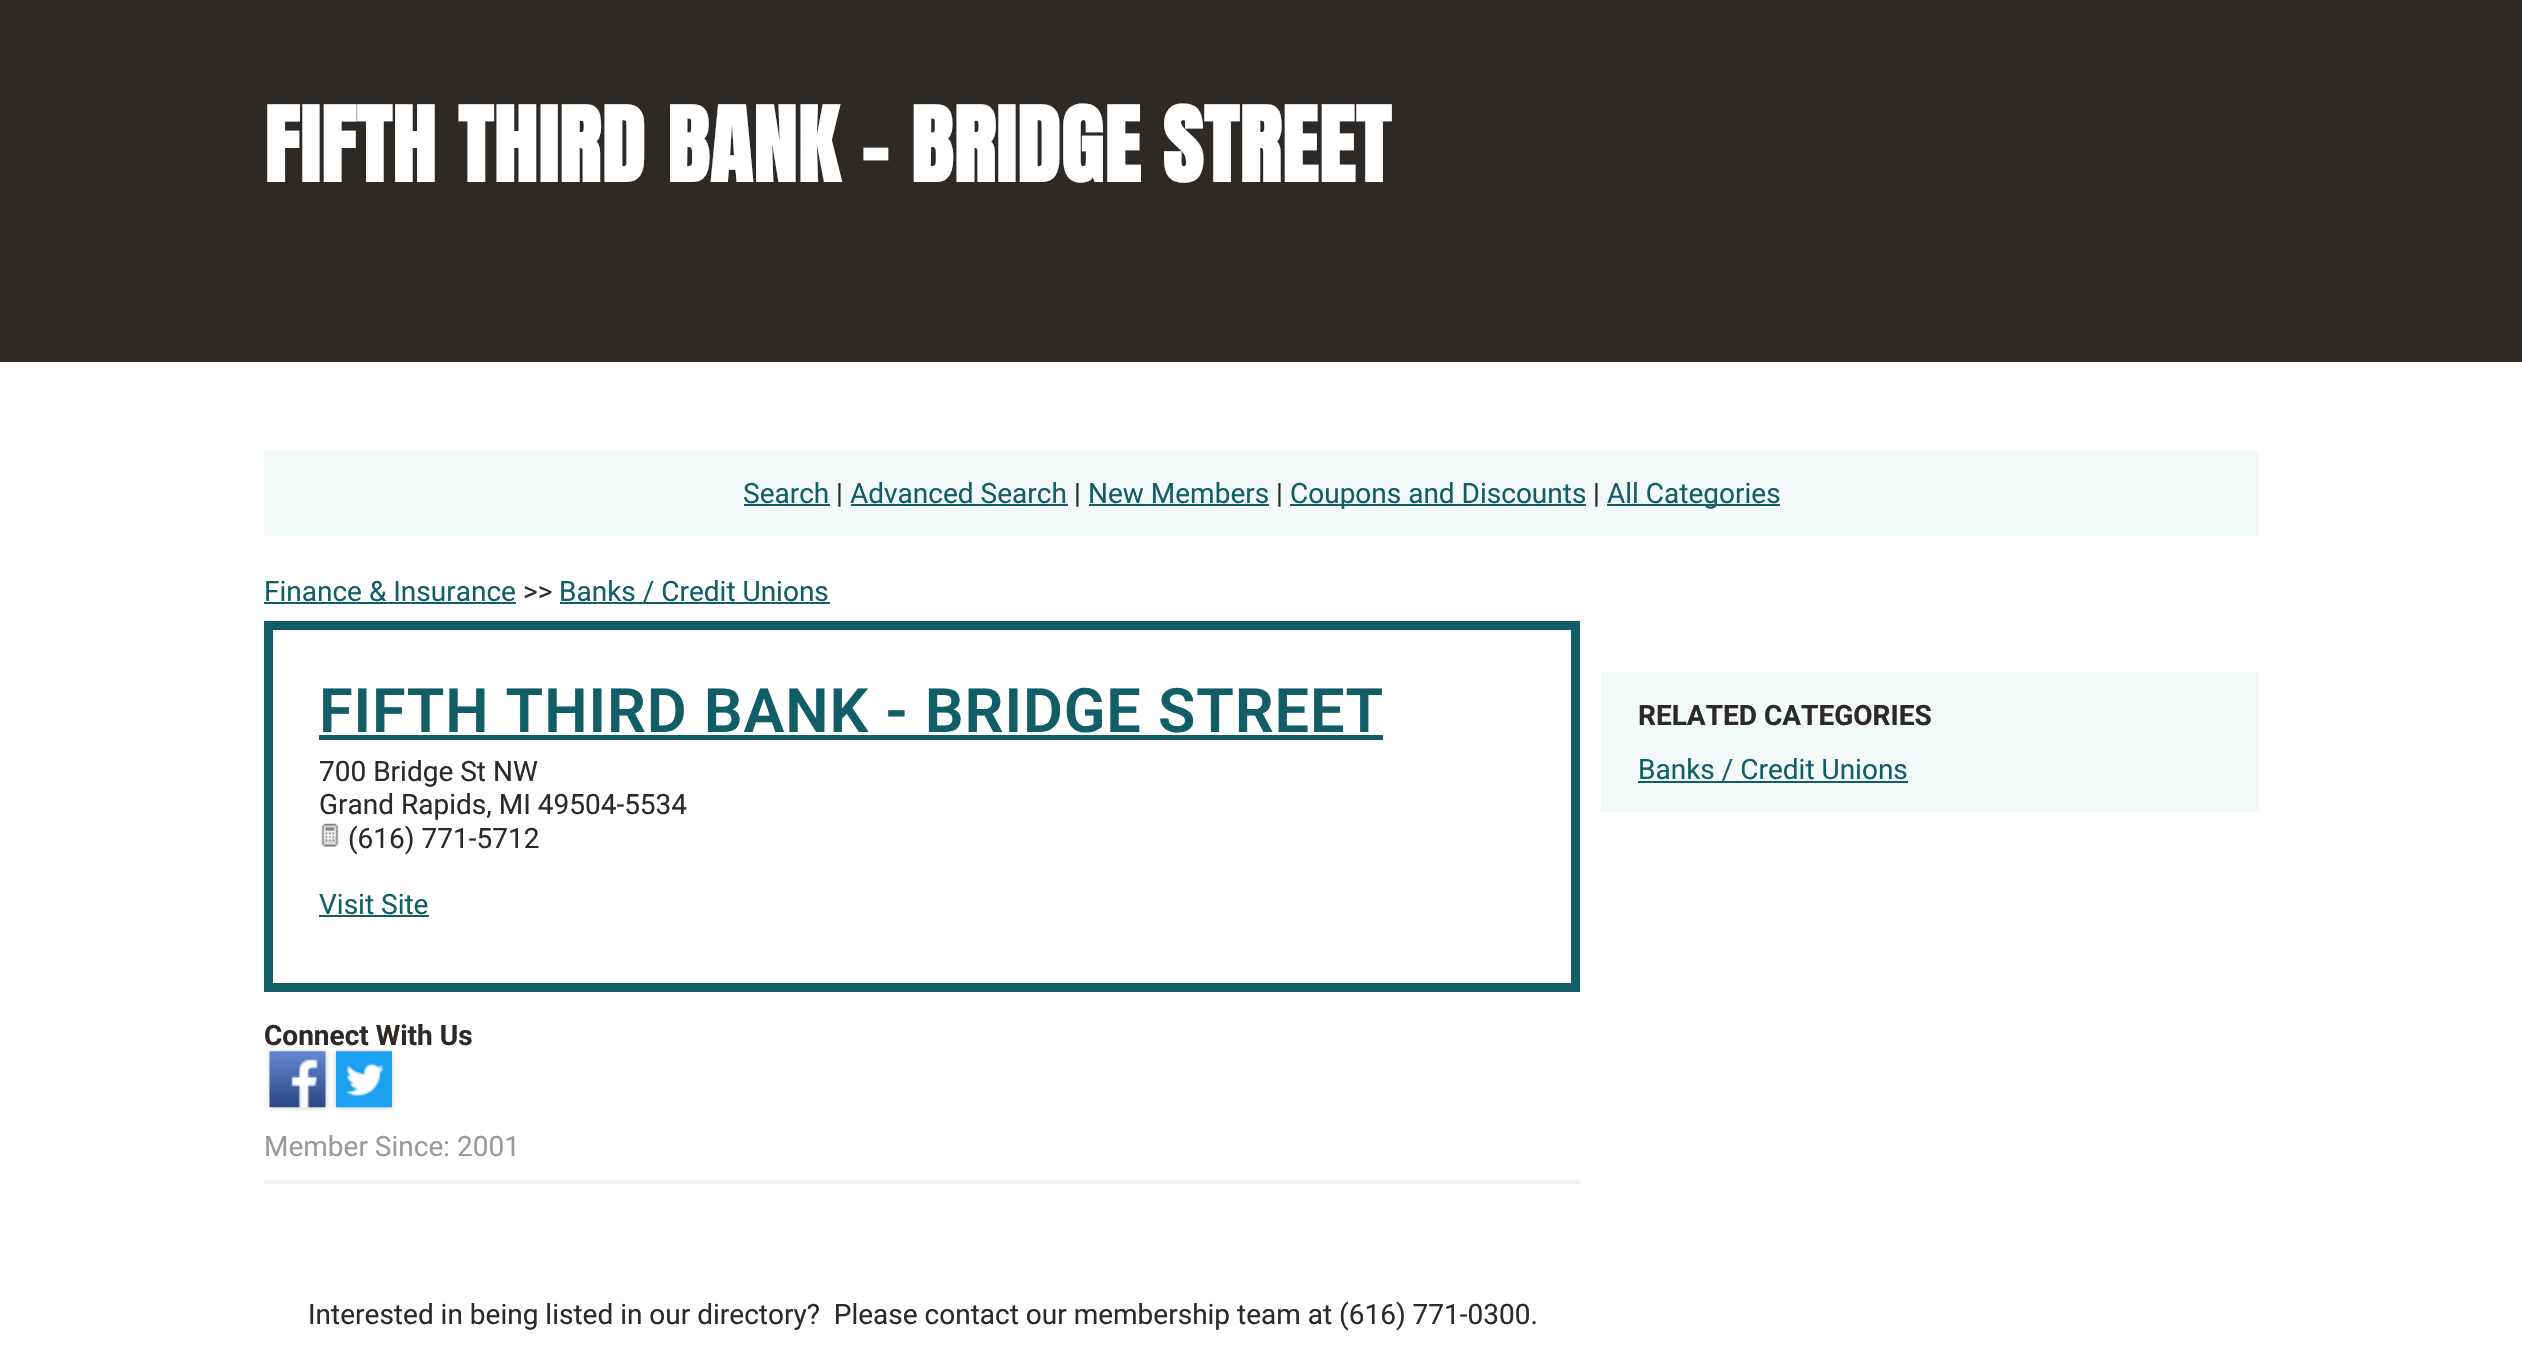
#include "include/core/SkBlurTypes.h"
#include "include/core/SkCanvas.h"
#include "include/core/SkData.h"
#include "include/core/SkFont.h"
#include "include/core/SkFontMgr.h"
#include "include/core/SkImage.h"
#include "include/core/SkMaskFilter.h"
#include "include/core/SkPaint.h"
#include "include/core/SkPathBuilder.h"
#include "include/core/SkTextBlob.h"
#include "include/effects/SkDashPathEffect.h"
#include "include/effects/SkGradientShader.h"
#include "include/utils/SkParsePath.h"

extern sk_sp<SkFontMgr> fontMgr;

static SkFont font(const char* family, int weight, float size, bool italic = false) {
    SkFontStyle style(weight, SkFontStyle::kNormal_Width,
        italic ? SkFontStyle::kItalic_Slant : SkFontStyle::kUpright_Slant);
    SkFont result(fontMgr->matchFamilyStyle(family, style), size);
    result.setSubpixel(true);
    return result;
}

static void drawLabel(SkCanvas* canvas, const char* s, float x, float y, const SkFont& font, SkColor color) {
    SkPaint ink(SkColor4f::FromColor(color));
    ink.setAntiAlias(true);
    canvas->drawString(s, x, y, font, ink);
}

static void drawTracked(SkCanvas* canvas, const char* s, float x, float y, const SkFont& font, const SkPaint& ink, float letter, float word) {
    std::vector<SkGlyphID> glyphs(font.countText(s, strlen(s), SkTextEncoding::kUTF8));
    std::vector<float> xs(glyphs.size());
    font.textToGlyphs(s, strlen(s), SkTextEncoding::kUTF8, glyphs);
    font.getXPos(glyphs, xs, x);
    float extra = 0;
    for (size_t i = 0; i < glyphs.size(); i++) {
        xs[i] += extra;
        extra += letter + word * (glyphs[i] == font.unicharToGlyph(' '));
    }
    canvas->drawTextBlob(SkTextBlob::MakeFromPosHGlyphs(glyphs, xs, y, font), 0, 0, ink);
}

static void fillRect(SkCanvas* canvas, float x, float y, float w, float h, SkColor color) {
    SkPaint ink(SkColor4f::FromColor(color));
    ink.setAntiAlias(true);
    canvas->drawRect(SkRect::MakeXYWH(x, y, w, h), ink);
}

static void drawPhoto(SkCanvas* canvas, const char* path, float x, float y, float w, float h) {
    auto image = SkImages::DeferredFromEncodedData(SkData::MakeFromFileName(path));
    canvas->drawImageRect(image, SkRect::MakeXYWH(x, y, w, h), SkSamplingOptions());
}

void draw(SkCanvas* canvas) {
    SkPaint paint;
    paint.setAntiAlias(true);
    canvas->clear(0xFFFFFFFF);
    fillRect(canvas, 0, 0, 2522, 362, 0xFF2D2926);
    SkFont font1 = font("Anton", 700, 87.5f);
    paint.setColor(0xFFFFFFFF);
    drawTracked(canvas, "FIFTH THIRD BANK - BRIDGE STREET", 264, 182, font1, paint, 0.9f, 0);
    fillRect(canvas, 264, 450, 1995, 86, 0xFFF2F9F8);
    SkFont font2 = font("Roboto", 400, 28);
    drawLabel(canvas, "Search", 743, 503, font2, 0xFF115E67);
    fillRect(canvas, 744, 504, 86, 2, 0xFF115E67);
    drawLabel(canvas, "|", 836, 503, font2, 0xFF2D2926);
    drawLabel(canvas, "Advanced Search", 850, 503, font2, 0xFF115E67);
    fillRect(canvas, 851, 504, 217, 2, 0xFF115E67);
    drawLabel(canvas, "|", 1074, 503, font2, 0xFF2D2926);
    drawLabel(canvas, "New Members", 1088, 503, font2, 0xFF115E67);
    fillRect(canvas, 1089, 504, 180, 2, 0xFF115E67);
    drawLabel(canvas, "|", 1276, 503, font2, 0xFF2D2926);
    fillRect(canvas, 1290, 504, 296, 2, 0xFF115E67);
    drawLabel(canvas, "Coupons and Discounts", 1290, 503, font2, 0xFF115E67);
    drawLabel(canvas, "|", 1593, 503, font2, 0xFF2D2926);
    fillRect(canvas, 1607, 504, 173, 2, 0xFF115E67);
    drawLabel(canvas, "All Categories", 1607, 503, font2, 0xFF115E67);
    drawLabel(canvas, "Finance & Insurance", 264, 601, font2, 0xFF115E67);
    fillRect(canvas, 264, 602, 252, 2, 0xFF115E67);
    drawLabel(canvas, ">>", 523, 601, font2, 0xFF2D2926);
    fillRect(canvas, 560, 602, 270, 2, 0xFF115E67);
    drawLabel(canvas, "Banks / Credit Unions", 559, 601, font2, 0xFF115E67);
    paint.setStroke(true);
    paint.setStrokeWidth(9);
    paint.setColor(0xFF115E67);
    canvas->drawRect(SkRect::MakeXYWH(268.5f, 625.5f, 1307, 362), paint);
    SkFont font3 = font("Roboto", 600, 61.25f);
    paint.setStroke(false);
    drawTracked(canvas, "FIFTH THIRD BANK - BRIDGE STREET", 319, 732, font3, paint, 0.9f, 0);
    fillRect(canvas, 319, 735, 1064, 5, 0xFF115E67);
    drawLabel(canvas, "700 Bridge St NW", 319, 781, font2, 0xFF2D2926);
    drawLabel(canvas, "Grand Rapids, MI 49504-5534", 319, 814, font2, 0xFF2D2926);
    drawPhoto(canvas, "assets/img1.png", 321, 823, 18, 24);
    drawLabel(canvas, "(616) 771-5712", 348, 848, font2, 0xFF2D2926);
    drawLabel(canvas, "Visit Site", 319, 914, font2, 0xFF115E67);
    fillRect(canvas, 319, 915, 110, 2, 0xFF115E67);
    SkFont font4 = font("Roboto", 700, 28);
    drawLabel(canvas, "Connect With Us", 264, 1045, font4, 0xFF2D2926);
    paint.setColor(0x33000000);
    paint.setMaskFilter(SkMaskFilter::MakeBlur(kNormal_SkBlurStyle, 2.5f));
    canvas->drawRect(SkRect::MakeXYWH(270, 1052, 56, 56), paint);
    paint.setMaskFilter(nullptr);
    paint.setMaskFilter(SkMaskFilter::MakeBlur(kNormal_SkBlurStyle, 2.5f));
    canvas->drawRect(SkRect::MakeXYWH(336, 1052, 56, 56), paint);
    paint.setMaskFilter(nullptr);
    drawPhoto(canvas, "assets/img2.png", 269, 1051, 57, 57);
    drawPhoto(canvas, "assets/img3.png", 336, 1051, 56, 57);
    drawLabel(canvas, "Member Since: 2001", 264, 1156, font2, 0xFF999999);
    fillRect(canvas, 264, 1180, 1316, 4, 0xFFEFF6F5);
    drawLabel(canvas, "Interested in being listed in our directory?  Please contact our membership team at (616) 771-0300.", 308, 1324, font2, 0xFF2D2926);
    fillRect(canvas, 1601, 672, 658, 140, 0xFFF2F9F8);
    drawLabel(canvas, "RELATED CATEGORIES", 1638, 725, font4, 0xFF2D2926);
    drawLabel(canvas, "Banks / Credit Unions", 1638, 779, font2, 0xFF115E67);
    fillRect(canvas, 1638, 781, 270, 2, 0xFF115E67);
}
